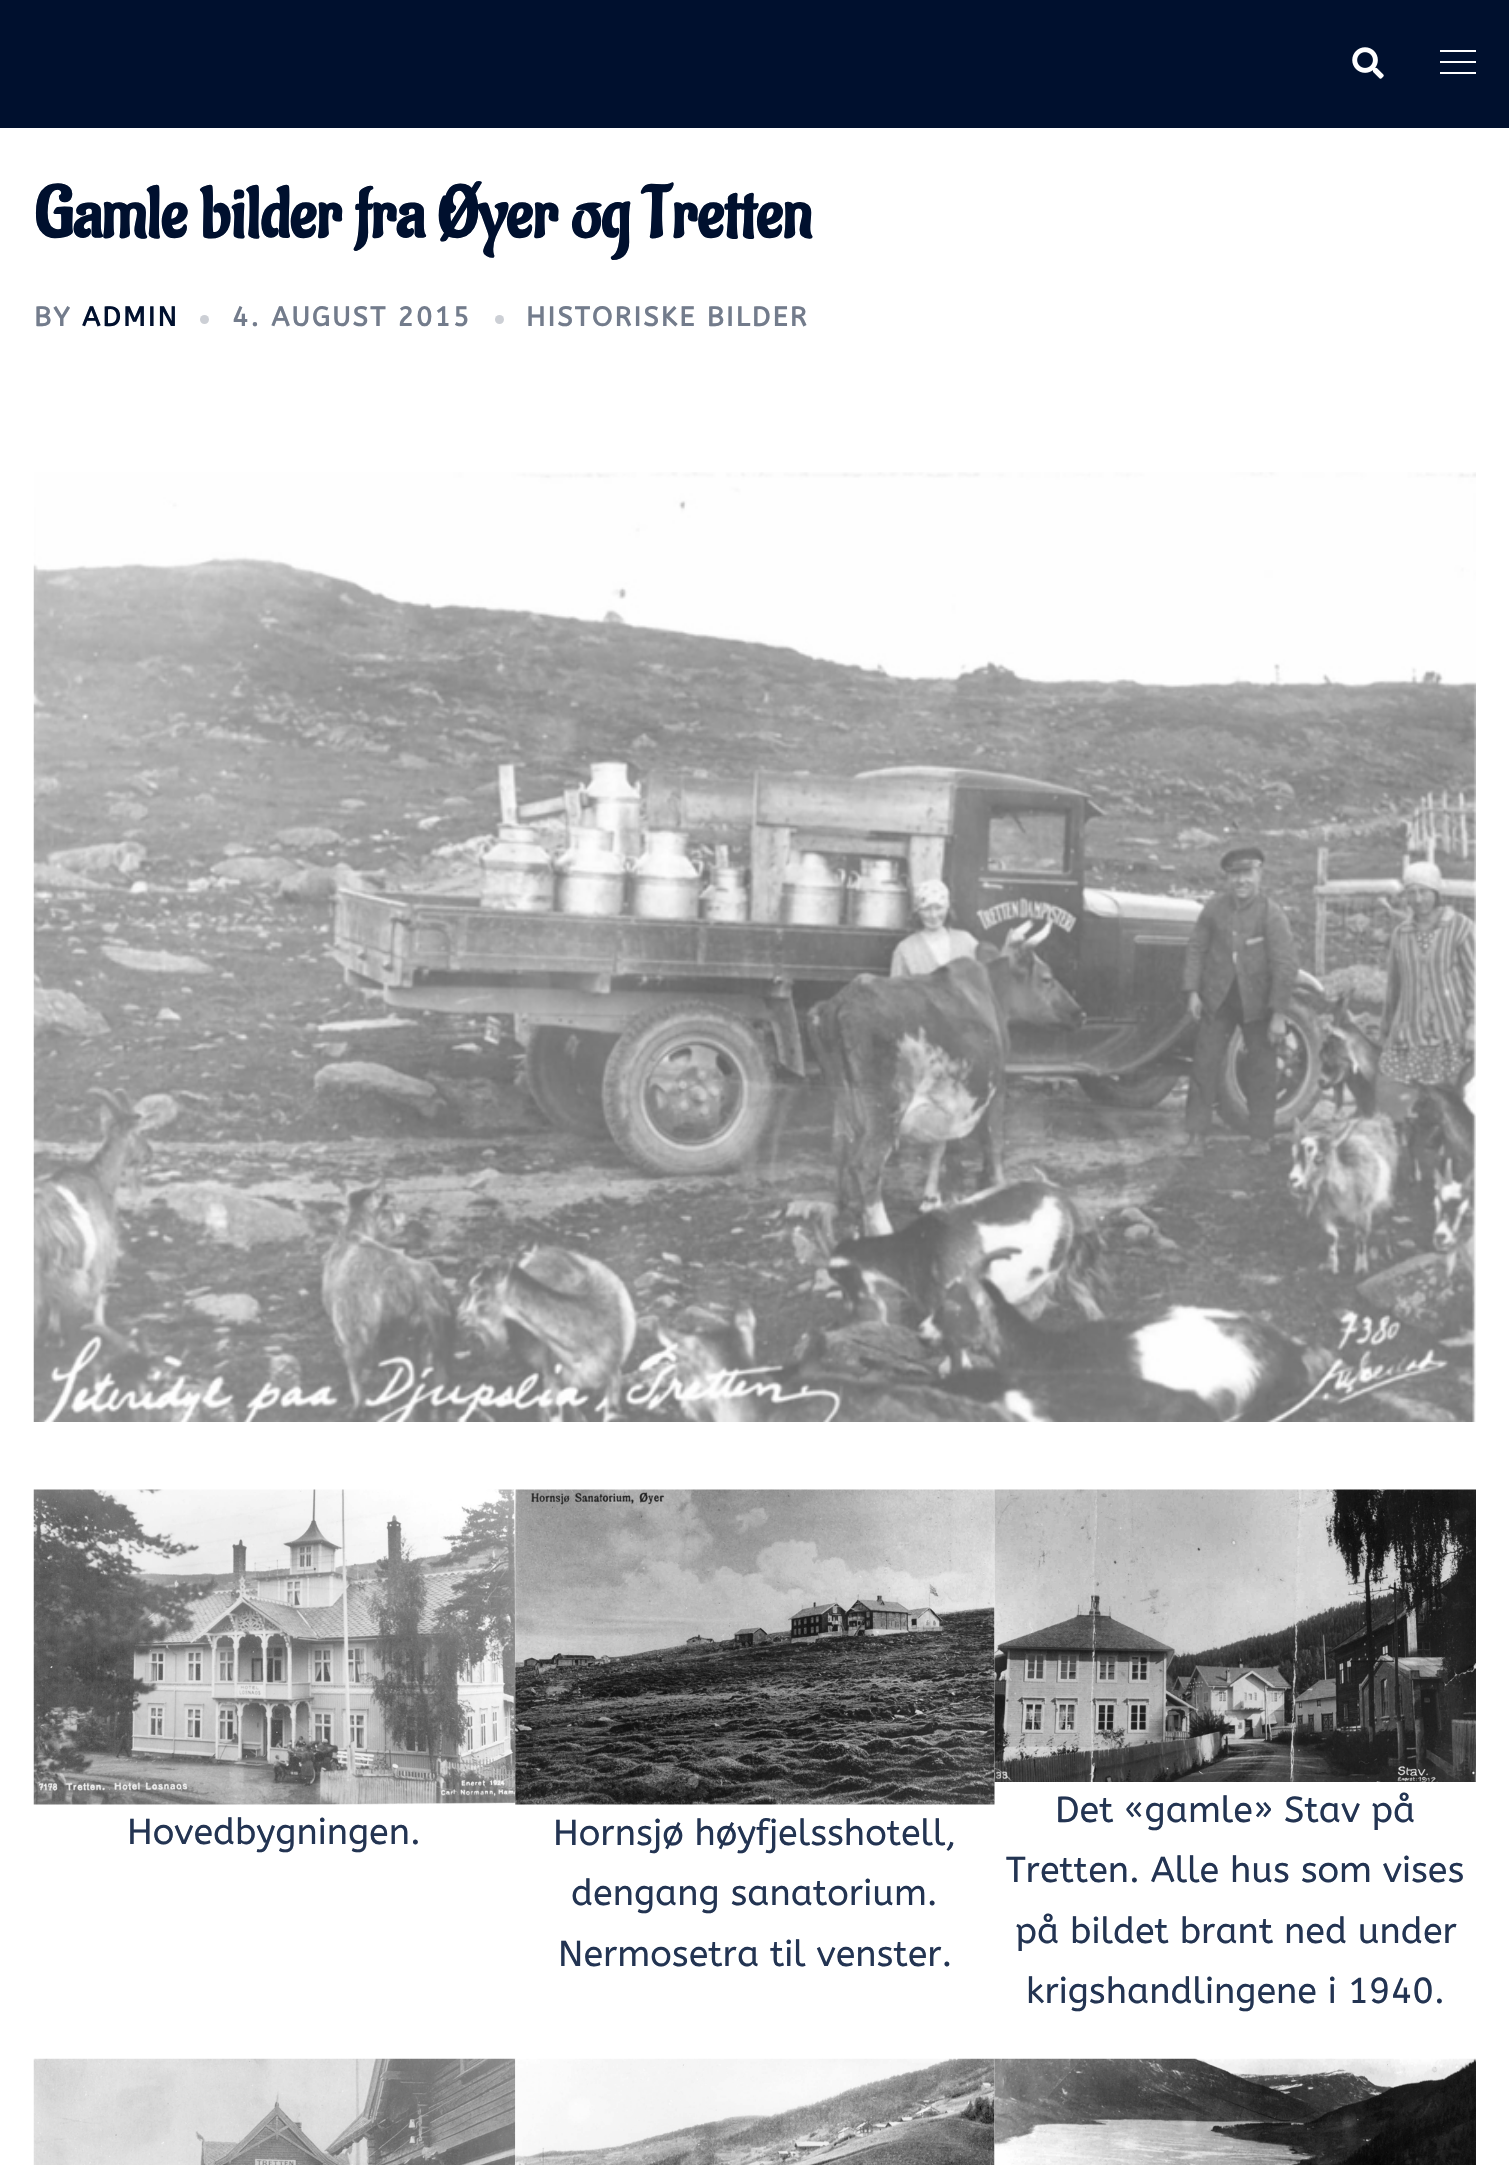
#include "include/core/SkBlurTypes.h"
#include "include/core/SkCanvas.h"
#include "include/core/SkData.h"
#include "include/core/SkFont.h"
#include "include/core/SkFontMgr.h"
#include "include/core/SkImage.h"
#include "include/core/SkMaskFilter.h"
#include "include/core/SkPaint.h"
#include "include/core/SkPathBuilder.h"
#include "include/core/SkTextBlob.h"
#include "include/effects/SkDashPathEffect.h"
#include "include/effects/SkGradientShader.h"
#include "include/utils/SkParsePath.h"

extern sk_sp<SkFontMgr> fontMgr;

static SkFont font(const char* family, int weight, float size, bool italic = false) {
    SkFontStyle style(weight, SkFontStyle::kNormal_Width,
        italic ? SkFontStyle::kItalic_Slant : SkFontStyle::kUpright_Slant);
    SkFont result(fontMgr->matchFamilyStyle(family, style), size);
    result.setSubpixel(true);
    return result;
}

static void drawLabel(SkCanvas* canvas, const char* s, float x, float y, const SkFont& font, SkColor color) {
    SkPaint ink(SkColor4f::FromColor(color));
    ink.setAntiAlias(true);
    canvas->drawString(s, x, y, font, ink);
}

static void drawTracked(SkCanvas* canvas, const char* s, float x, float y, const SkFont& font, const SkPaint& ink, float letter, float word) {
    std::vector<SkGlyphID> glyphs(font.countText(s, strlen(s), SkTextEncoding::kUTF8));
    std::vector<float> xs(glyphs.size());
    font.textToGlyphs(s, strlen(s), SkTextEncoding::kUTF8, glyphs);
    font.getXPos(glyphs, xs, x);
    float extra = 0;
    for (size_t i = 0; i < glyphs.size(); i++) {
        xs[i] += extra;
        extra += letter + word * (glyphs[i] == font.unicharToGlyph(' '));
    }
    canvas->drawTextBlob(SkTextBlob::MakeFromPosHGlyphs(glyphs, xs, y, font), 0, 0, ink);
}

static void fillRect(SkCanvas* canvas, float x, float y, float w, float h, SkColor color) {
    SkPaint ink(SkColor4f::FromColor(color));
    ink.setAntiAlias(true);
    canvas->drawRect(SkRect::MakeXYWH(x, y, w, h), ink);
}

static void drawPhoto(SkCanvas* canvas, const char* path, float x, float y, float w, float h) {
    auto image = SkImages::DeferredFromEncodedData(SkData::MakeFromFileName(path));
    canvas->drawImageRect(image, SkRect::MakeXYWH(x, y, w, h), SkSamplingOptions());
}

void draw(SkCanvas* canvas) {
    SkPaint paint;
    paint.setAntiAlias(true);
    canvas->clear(0xFFFFFFFF);
    fillRect(canvas, 0, 0, 1509, 128, 0xFF00102E);
    drawPhoto(canvas, "assets/img1.png", 1352, 47, 32, 32);
    fillRect(canvas, 1440, 50, 36, 2, 0xFFFFFFFF);
    fillRect(canvas, 1440, 61, 36, 2, 0xFFFFFFFF);
    fillRect(canvas, 1440, 72, 36, 2, 0xFFFFFFFF);
    SkFont font1 = font("Aladin", 700, 72);
    drawLabel(canvas, "Gamle bilder fra Øyer og Tretten", 34, 237, font1, 0xFF00102E);
    SkFont font2 = font("ABeeZee", 700, 27);
    paint.setColor(0xFF737C8C);
    drawTracked(canvas, "BY", 34, 326, font2, paint, 2.25f, 0);
    paint.setColor(0xFF00102E);
    drawTracked(canvas, "ADMIN", 82, 326, font2, paint, 2.25f, 0);
    paint.setColor(0xFFCCCFD5);
    canvas->drawCircle(204.5f, 319.5f, 4.5f, paint);
    paint.setColor(0xFF737C8C);
    drawTracked(canvas, "4. AUGUST 2015", 232, 326, font2, paint, 2.25f, 0);
    paint.setColor(0xFFCCCFD5);
    canvas->drawCircle(499.5f, 319.5f, 4.5f, paint);
    paint.setColor(0xFF737C8C);
    drawTracked(canvas, "HISTORISKE BILDER", 526, 326, font2, paint, 2.25f, 0);
    drawPhoto(canvas, "assets/img2.png", 33, 472, 1443, 950);
    drawPhoto(canvas, "assets/img3.png", 33, 1489, 483, 316);
    SkFont font3 = font("ABeeZee", 400, 36);
    drawLabel(canvas, "Hovedbygningen.", 127, 1844, font3, 0xFF233452);
    drawPhoto(canvas, "assets/img4.png", 515, 1489, 480, 316);
    drawLabel(canvas, "Hornsjø høyfjelsshotell,", 553, 1845, font3, 0xFF233452);
    drawLabel(canvas, "dengang sanatorium.", 571, 1905, font3, 0xFF233452);
    drawLabel(canvas, "Nermosetra til venster.", 558, 1966, font3, 0xFF233452);
    drawPhoto(canvas, "assets/img5.png", 994, 1489, 482, 293);
    drawLabel(canvas, "Det «gamle» Stav på", 1055, 1822, font3, 0xFF233452);
    drawLabel(canvas, "Tretten. Alle hus som vises", 1006, 1882, font3, 0xFF233452);
    drawLabel(canvas, "på bildet brant ned under", 1015, 1943, font3, 0xFF233452);
    drawLabel(canvas, "krigshandlingene i 1940.", 1026, 2003, font3, 0xFF233452);
    drawPhoto(canvas, "assets/img6.png", 33, 2058, 483, 107);
    drawPhoto(canvas, "assets/img7.png", 515, 2058, 480, 107);
    drawPhoto(canvas, "assets/img8.png", 994, 2058, 482, 107);
}
